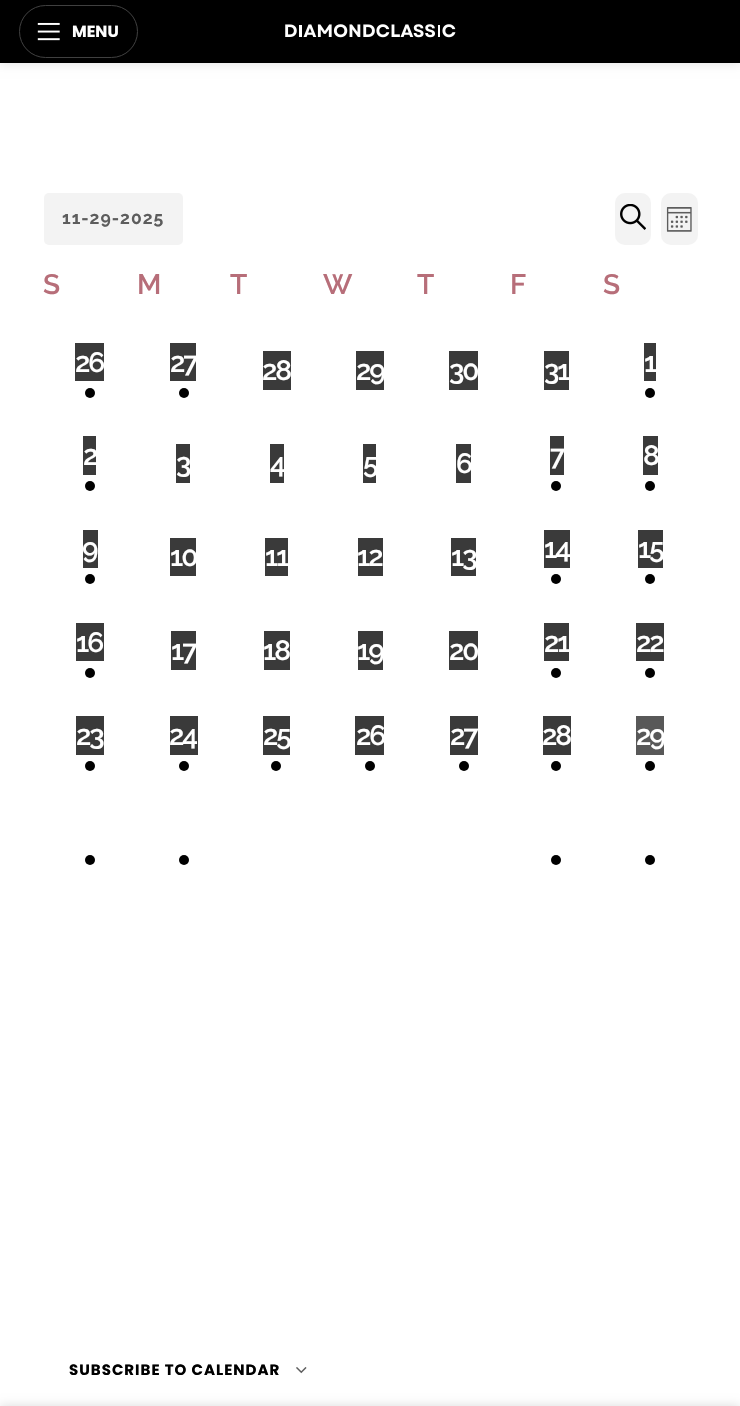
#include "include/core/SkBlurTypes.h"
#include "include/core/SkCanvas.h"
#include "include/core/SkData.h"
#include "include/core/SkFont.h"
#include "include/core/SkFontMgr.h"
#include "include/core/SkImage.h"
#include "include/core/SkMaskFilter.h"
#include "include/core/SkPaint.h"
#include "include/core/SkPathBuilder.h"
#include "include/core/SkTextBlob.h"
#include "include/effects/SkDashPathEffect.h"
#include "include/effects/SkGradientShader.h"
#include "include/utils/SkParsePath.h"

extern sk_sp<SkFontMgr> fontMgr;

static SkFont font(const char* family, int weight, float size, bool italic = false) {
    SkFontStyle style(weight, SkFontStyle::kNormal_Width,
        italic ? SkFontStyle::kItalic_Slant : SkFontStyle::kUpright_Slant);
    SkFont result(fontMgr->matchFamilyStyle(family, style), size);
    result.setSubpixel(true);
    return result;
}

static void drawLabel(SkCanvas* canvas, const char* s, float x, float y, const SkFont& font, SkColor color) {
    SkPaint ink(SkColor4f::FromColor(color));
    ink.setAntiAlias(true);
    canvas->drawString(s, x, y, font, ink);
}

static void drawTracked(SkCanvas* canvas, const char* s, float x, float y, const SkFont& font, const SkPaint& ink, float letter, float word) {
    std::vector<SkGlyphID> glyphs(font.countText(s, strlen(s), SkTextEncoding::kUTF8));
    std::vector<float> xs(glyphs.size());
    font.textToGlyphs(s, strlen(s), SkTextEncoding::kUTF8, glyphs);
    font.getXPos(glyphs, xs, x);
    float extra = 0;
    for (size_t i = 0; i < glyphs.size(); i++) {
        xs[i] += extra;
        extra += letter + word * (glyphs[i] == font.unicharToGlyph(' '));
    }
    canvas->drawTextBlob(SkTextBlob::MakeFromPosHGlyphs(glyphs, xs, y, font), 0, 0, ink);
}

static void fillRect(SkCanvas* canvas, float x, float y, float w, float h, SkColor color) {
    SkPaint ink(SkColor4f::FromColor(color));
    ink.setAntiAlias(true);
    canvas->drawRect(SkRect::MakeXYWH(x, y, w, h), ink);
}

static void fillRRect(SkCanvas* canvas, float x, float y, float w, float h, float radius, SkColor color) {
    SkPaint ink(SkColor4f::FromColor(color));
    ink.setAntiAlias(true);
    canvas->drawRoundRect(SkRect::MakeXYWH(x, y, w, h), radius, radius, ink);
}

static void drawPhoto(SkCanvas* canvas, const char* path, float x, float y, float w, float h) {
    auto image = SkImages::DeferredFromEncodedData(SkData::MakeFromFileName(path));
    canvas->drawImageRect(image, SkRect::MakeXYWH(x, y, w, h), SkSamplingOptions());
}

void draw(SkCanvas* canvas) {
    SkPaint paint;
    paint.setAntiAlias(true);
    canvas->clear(0xFFFFFFFF);
    paint.setColor(0x1A000000);
    paint.setMaskFilter(SkMaskFilter::MakeBlur(kNormal_SkBlurStyle, 5));
    canvas->drawRect(SkRect::MakeXYWH(0, 1, 740, 63), paint);
    paint.setMaskFilter(nullptr);
    fillRect(canvas, 0, 0, 740, 63, 0xFF000000);
    paint.setStroke(true);
    paint.setStrokeWidth(1);
    paint.setColor(0xFF404040);
    canvas->drawRoundRect(SkRect::MakeXYWH(19.5f, 5.5f, 118, 52), 26, 26, paint);
    drawPhoto(canvas, "assets/img1.png", 37, 22, 23, 19);
    SkFont font1 = font("Poppins", 700, 16);
    drawLabel(canvas, "MENU", 72, 37, font1, 0xFFFFFFFF);
    drawPhoto(canvas, "assets/img2.png", 285, 24, 171, 14);
    fillRRect(canvas, 44, 193, 139, 52, 5, 0xFFF3F3F3);
    SkFont font2 = font("Raleway", 700, 17.5f);
    paint.setStroke(false);
    paint.setColor(0xFF5D5D5D);
    drawTracked(canvas, "11-29-2025", 62, 224, font2, paint, 1, 0);
    fillRRect(canvas, 615, 193, 36, 52, 10, 0xFFF3F3F3);
    drawPhoto(canvas, "assets/img3.png", 620, 204, 26, 26);
    fillRRect(canvas, 661, 193, 37, 52, 10, 0xFFF3F3F3);
    drawPhoto(canvas, "assets/img4.png", 666, 207, 26, 25);
    SkFont font3 = font("Raleway", 600, 28);
    paint.setColor(0xFFB76E79);
    drawTracked(canvas, "S", 43, 294, font3, paint, -2, 0);
    drawTracked(canvas, "M", 137, 294, font3, paint, -2, 0);
    drawTracked(canvas, "T", 230, 294, font3, paint, -2, 0);
    drawTracked(canvas, "W", 323, 294, font3, paint, -2, 0);
    drawTracked(canvas, "T", 417, 294, font3, paint, -2, 0);
    drawTracked(canvas, "F", 510, 294, font3, paint, -2, 0);
    drawTracked(canvas, "S", 603, 294, font3, paint, -2, 0);
    fillRect(canvas, 75, 343, 29, 38, 0xFF3A3A3A);
    paint.setColor(0xFFFFFFFF);
    drawTracked(canvas, "26", 75, 372, font3, paint, -2, 0);
    paint.setColor(0xFF000000);
    canvas->drawCircle(90, 393, 5, paint);
    fillRect(canvas, 170, 343, 26, 38, 0xFF3A3A3A);
    paint.setColor(0xFFFFFFFF);
    drawTracked(canvas, "27", 170, 372, font3, paint, -2, 0);
    paint.setColor(0xFF000000);
    canvas->drawCircle(184, 393, 5, paint);
    fillRect(canvas, 263, 351, 28, 39, 0xFF3A3A3A);
    paint.setColor(0xFFFFFFFF);
    drawTracked(canvas, "28", 262, 380, font3, paint, -2, 0);
    fillRect(canvas, 356, 351, 28, 39, 0xFF3A3A3A);
    drawTracked(canvas, "29", 356, 380, font3, paint, -2, 0);
    fillRect(canvas, 449, 351, 29, 39, 0xFF3A3A3A);
    drawTracked(canvas, "30", 449, 380, font3, paint, -2, 0);
    fillRect(canvas, 544, 351, 25, 39, 0xFF3A3A3A);
    drawTracked(canvas, "31", 544, 380, font3, paint, -2, 0);
    fillRect(canvas, 644, 343, 12, 38, 0xFF3A3A3A);
    drawTracked(canvas, "1", 644, 372, font3, paint, -2, 0);
    paint.setColor(0xFF000000);
    canvas->drawCircle(650, 393, 5, paint);
    fillRect(canvas, 83, 436, 13, 39, 0xFF3A3A3A);
    paint.setColor(0xFFFFFFFF);
    drawTracked(canvas, "2", 83, 465, font3, paint, -2, 0);
    paint.setColor(0xFF000000);
    canvas->drawCircle(90, 486, 5, paint);
    fillRect(canvas, 176, 444, 14, 39, 0xFF3A3A3A);
    paint.setColor(0xFFFFFFFF);
    drawTracked(canvas, "3", 176, 473, font3, paint, -2, 0);
    fillRect(canvas, 270, 444, 14, 39, 0xFF3A3A3A);
    drawTracked(canvas, "4", 270, 473, font3, paint, -2, 0);
    fillRect(canvas, 363, 444, 13, 39, 0xFF3A3A3A);
    drawTracked(canvas, "5", 363, 473, font3, paint, -2, 0);
    fillRect(canvas, 456, 444, 15, 39, 0xFF3A3A3A);
    drawTracked(canvas, "6", 456, 473, font3, paint, -2, 0);
    fillRect(canvas, 550, 436, 14, 39, 0xFF3A3A3A);
    drawTracked(canvas, "7", 550, 465, font3, paint, -2, 0);
    paint.setColor(0xFF000000);
    canvas->drawCircle(556, 486, 5, paint);
    fillRect(canvas, 643, 436, 15, 39, 0xFF3A3A3A);
    paint.setColor(0xFFFFFFFF);
    drawTracked(canvas, "8", 643, 465, font3, paint, -2, 0);
    paint.setColor(0xFF000000);
    canvas->drawCircle(650, 486, 5, paint);
    fillRect(canvas, 83, 530, 15, 38, 0xFF3A3A3A);
    paint.setColor(0xFFFFFFFF);
    drawTracked(canvas, "9", 82, 558, font3, paint, -2, 0);
    paint.setColor(0xFF000000);
    canvas->drawCircle(90, 579, 5, paint);
    fillRect(canvas, 170, 538, 26, 38, 0xFF3A3A3A);
    paint.setColor(0xFFFFFFFF);
    drawTracked(canvas, "10", 170, 566, font3, paint, -2, 0);
    fillRect(canvas, 265, 538, 23, 38, 0xFF3A3A3A);
    drawTracked(canvas, "11", 265, 566, font3, paint, -2, 0);
    fillRect(canvas, 358, 538, 25, 38, 0xFF3A3A3A);
    drawTracked(canvas, "12", 357, 566, font3, paint, -2, 0);
    fillRect(canvas, 451, 538, 25, 38, 0xFF3A3A3A);
    drawTracked(canvas, "13", 451, 566, font3, paint, -2, 0);
    fillRect(canvas, 544, 530, 26, 38, 0xFF3A3A3A);
    drawTracked(canvas, "14", 544, 558, font3, paint, -2, 0);
    paint.setColor(0xFF000000);
    canvas->drawCircle(556, 579, 5, paint);
    fillRect(canvas, 638, 530, 25, 38, 0xFF3A3A3A);
    paint.setColor(0xFFFFFFFF);
    drawTracked(canvas, "15", 638, 558, font3, paint, -2, 0);
    paint.setColor(0xFF000000);
    canvas->drawCircle(650, 579, 5, paint);
    fillRect(canvas, 76, 623, 28, 38, 0xFF3A3A3A);
    paint.setColor(0xFFFFFFFF);
    drawTracked(canvas, "16", 76, 652, font3, paint, -2, 0);
    paint.setColor(0xFF000000);
    canvas->drawCircle(90, 673, 5, paint);
    fillRect(canvas, 171, 631, 25, 39, 0xFF3A3A3A);
    paint.setColor(0xFFFFFFFF);
    drawTracked(canvas, "17", 171, 660, font3, paint, -2, 0);
    fillRect(canvas, 264, 631, 26, 39, 0xFF3A3A3A);
    drawTracked(canvas, "18", 263, 660, font3, paint, -2, 0);
    fillRect(canvas, 358, 631, 25, 39, 0xFF3A3A3A);
    drawTracked(canvas, "19", 357, 660, font3, paint, -2, 0);
    fillRect(canvas, 449, 631, 29, 39, 0xFF3A3A3A);
    drawTracked(canvas, "20", 449, 660, font3, paint, -2, 0);
    fillRect(canvas, 544, 623, 25, 38, 0xFF3A3A3A);
    drawTracked(canvas, "21", 544, 652, font3, paint, -2, 0);
    paint.setColor(0xFF000000);
    canvas->drawCircle(556, 673, 5, paint);
    fillRect(canvas, 636, 623, 28, 38, 0xFF3A3A3A);
    paint.setColor(0xFFFFFFFF);
    drawTracked(canvas, "22", 636, 652, font3, paint, -2, 0);
    paint.setColor(0xFF000000);
    canvas->drawCircle(650, 673, 5, paint);
    fillRect(canvas, 76, 716, 28, 39, 0xFF3A3A3A);
    paint.setColor(0xFFFFFFFF);
    drawTracked(canvas, "23", 76, 745, font3, paint, -2, 0);
    paint.setColor(0xFF000000);
    canvas->drawCircle(90, 766, 5, paint);
    fillRect(canvas, 170, 716, 28, 39, 0xFF3A3A3A);
    paint.setColor(0xFFFFFFFF);
    drawTracked(canvas, "24", 169, 745, font3, paint, -2, 0);
    paint.setColor(0xFF000000);
    canvas->drawCircle(184, 766, 5, paint);
    fillRect(canvas, 263, 716, 27, 39, 0xFF3A3A3A);
    paint.setColor(0xFFFFFFFF);
    drawTracked(canvas, "25", 263, 745, font3, paint, -2, 0);
    paint.setColor(0xFF000000);
    canvas->drawCircle(276, 766, 5, paint);
    fillRect(canvas, 355, 716, 29, 39, 0xFF3A3A3A);
    paint.setColor(0xFFFFFFFF);
    drawTracked(canvas, "26", 356, 745, font3, paint, -2, 0);
    paint.setColor(0xFF000000);
    canvas->drawCircle(370, 766, 5, paint);
    fillRect(canvas, 450, 716, 28, 39, 0xFF3A3A3A);
    paint.setColor(0xFFFFFFFF);
    drawTracked(canvas, "27", 450, 745, font3, paint, -2, 0);
    paint.setColor(0xFF000000);
    canvas->drawCircle(464, 766, 5, paint);
    fillRect(canvas, 543, 716, 28, 39, 0xFF3A3A3A);
    paint.setColor(0xFFFFFFFF);
    drawTracked(canvas, "28", 542, 745, font3, paint, -2, 0);
    paint.setColor(0xFF000000);
    canvas->drawCircle(556, 766, 5, paint);
    fillRect(canvas, 636, 716, 28, 39, 0xFF585858);
    paint.setColor(0xFFFFFFFF);
    drawTracked(canvas, "29", 636, 745, font3, paint, -2, 0);
    paint.setColor(0xFF000000);
    canvas->drawCircle(650, 766, 5, paint);
    canvas->drawCircle(90, 860, 5, paint);
    canvas->drawCircle(184, 860, 5, paint);
    canvas->drawCircle(556, 860, 5, paint);
    canvas->drawCircle(650, 860, 5, paint);
    SkFont font4 = font("Poppins", 700, 15);
    drawTracked(canvas, "SUBSCRIBE TO CALENDAR", 69, 1375, font4, paint, 1, 0);
    drawPhoto(canvas, "assets/img5.png", 296, 1367, 11, 7);
    paint.setColor(0x24000000);
    paint.setMaskFilter(SkMaskFilter::MakeBlur(kNormal_SkBlurStyle, 5.5f));
    canvas->drawRect(SkRect::MakeXYWH(0, 1406, 740, 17), paint);
    paint.setMaskFilter(nullptr);
}
